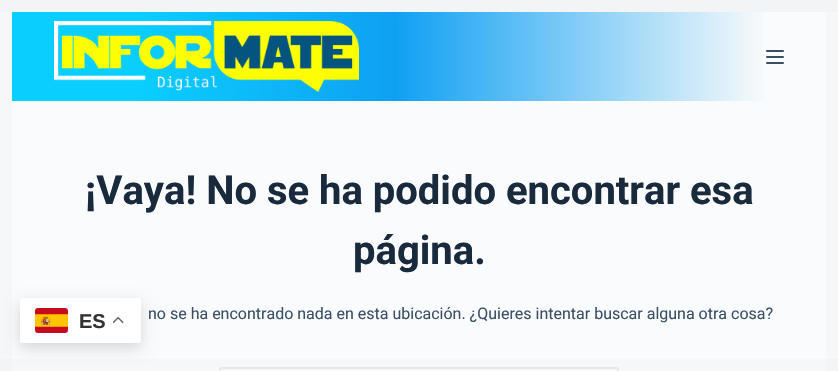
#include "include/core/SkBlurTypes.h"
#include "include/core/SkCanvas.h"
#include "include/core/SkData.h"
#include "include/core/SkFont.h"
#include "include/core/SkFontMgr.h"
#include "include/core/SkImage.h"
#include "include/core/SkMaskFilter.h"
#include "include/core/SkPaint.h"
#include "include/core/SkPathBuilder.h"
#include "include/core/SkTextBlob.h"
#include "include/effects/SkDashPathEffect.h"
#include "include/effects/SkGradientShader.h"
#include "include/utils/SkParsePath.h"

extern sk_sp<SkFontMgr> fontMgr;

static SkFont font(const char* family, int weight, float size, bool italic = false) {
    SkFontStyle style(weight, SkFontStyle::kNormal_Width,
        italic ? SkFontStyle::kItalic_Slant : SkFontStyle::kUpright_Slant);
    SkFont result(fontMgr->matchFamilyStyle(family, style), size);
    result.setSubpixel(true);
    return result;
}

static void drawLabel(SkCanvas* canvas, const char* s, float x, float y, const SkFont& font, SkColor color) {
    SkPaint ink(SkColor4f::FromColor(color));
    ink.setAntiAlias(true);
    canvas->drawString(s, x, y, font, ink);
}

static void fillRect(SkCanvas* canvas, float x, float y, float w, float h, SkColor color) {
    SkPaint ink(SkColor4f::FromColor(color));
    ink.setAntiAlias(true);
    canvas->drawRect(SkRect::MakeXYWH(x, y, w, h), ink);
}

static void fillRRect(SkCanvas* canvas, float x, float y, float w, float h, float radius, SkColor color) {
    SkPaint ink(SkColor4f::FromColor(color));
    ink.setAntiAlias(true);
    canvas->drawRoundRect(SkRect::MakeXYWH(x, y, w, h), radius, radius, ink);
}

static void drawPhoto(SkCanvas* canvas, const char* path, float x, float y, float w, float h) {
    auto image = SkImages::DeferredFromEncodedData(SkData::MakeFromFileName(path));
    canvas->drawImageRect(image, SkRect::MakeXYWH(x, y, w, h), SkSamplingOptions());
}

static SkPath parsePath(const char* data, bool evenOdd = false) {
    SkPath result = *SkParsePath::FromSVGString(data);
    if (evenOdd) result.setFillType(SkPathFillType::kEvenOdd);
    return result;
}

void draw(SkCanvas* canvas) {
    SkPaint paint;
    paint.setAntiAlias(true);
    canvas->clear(0xFFFAFBFC);
    paint.setStroke(true);
    paint.setStrokeWidth(12);
    paint.setColor(0xFFF5F7F8);
    canvas->drawRect(SkRect::MakeXYWH(6, 6, 826, 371), paint);
    fillRect(canvas, 0, 0, 838, 12, 0xFFF2F4F5);
    paint.setStroke(false);
    {
        const SkColor colors[] = {0xFF0ACFFE, 0xFF0FA0F3, 0xFFFBFBFB};
        const float stops[] = {0.15f, 0.47f, 0.93f};
        const SkPoint ends[] = {{12, 57}, {826, 56}};
        paint.setShader(SkGradientShader::MakeLinear(ends, colors, stops, 3, SkTileMode::kClamp));
        paint.setAlpha(255);
    }
    canvas->drawRect(SkRect::MakeXYWH(12, 12, 752, 89), paint);
    drawPhoto(canvas, "assets/img1.png", 54, 21, 305, 71);
    fillRRect(canvas, 766, 50, 18, 2, 1, 0xFF3A4F66);
    fillRRect(canvas, 766, 56, 18, 2, 1, 0xFF3A4F66);
    fillRRect(canvas, 766, 62, 18, 2, 1, 0xFF3A4F66);
    SkFont font1 = font("Roboto", 700, 40);
    drawLabel(canvas, "¡Vaya! No se ha podido encontrar esa", 85, 204, font1, 0xFF192A3D);
    drawLabel(canvas, "página.", 353, 264, font1, 0xFF192A3D);
    SkFont font2 = font("Roboto", 400, 16);
    drawLabel(canvas, "no se ha encontrado nada en esta ubicación. ¿Quieres intentar buscar alguna otra cosa?", 148, 319, font2, 0xFF3A4F66);
    paint.setShader(nullptr);
    paint.setColor(0xFFE1E8ED);
    canvas->drawPath(parsePath("M222 367H579V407H222C220 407 219 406 219 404V370C219 368 220 367 222 367ZM222 369H579V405H222L221 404V370Z", true), paint);
    canvas->drawPath(parsePath("M579 367H616C618 367 619 368 619 370V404C619 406 618 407 616 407H579ZM579 369H616C617 369 617 369 617 370V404C617 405 617 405 616 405H579Z", true), paint);
    fillRect(canvas, 0, 359, 838, 12, 0x45E9EBEC);
    paint.setColor(0x26000000);
    paint.setMaskFilter(SkMaskFilter::MakeBlur(kNormal_SkBlurStyle, 7.5f));
    canvas->drawRoundRect(SkRect::MakeXYWH(20, 303, 121, 45), 2, 2, paint);
    paint.setMaskFilter(nullptr);
    fillRRect(canvas, 20, 298, 121, 45, 2, 0xFFFFFFFF);
    drawPhoto(canvas, "assets/img2.png", 35, 308, 33, 25);
    SkFont font3 = font("Liberation Sans", 700, 20);
    drawLabel(canvas, "ES", 79, 328, font3, 0xFF333333);
    drawPhoto(canvas, "assets/img3.png", 113, 316, 11, 8);
}
